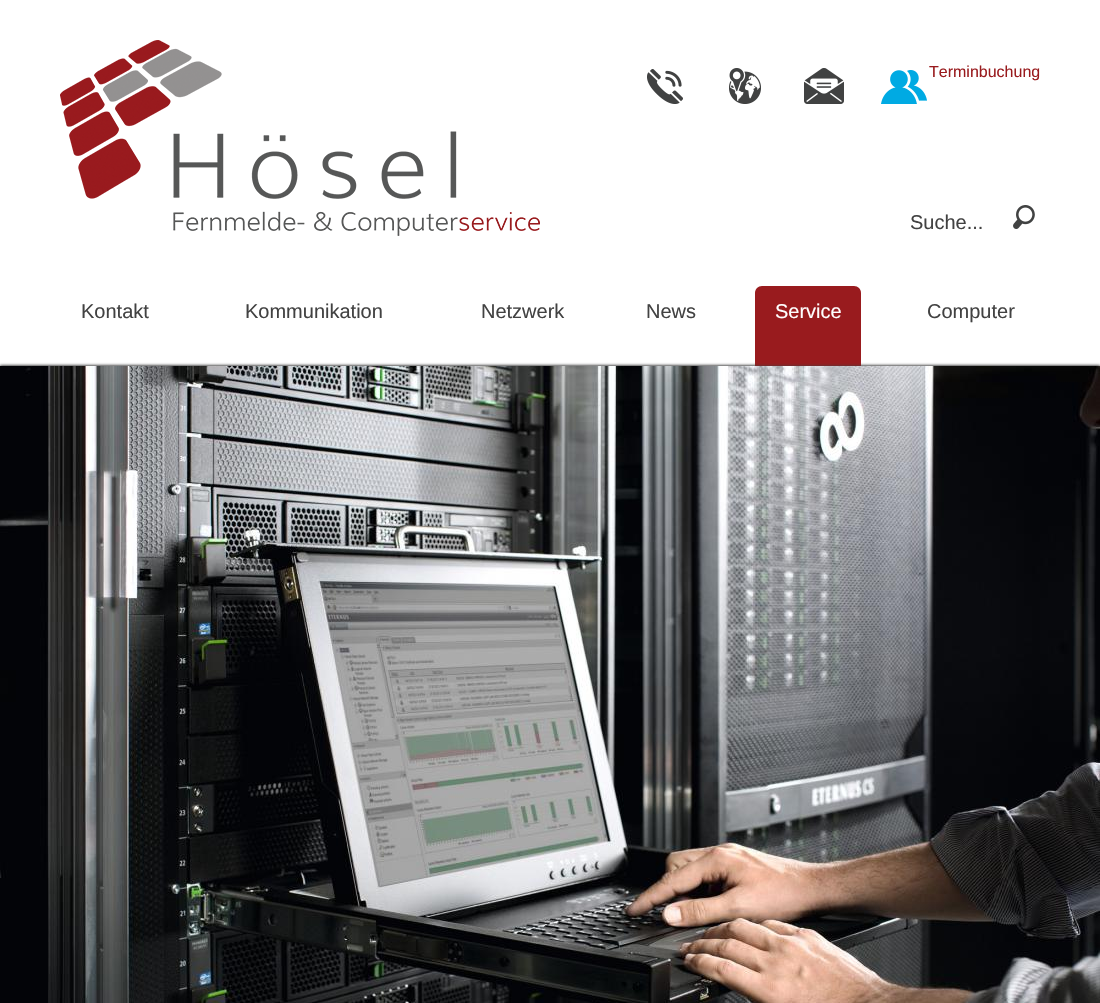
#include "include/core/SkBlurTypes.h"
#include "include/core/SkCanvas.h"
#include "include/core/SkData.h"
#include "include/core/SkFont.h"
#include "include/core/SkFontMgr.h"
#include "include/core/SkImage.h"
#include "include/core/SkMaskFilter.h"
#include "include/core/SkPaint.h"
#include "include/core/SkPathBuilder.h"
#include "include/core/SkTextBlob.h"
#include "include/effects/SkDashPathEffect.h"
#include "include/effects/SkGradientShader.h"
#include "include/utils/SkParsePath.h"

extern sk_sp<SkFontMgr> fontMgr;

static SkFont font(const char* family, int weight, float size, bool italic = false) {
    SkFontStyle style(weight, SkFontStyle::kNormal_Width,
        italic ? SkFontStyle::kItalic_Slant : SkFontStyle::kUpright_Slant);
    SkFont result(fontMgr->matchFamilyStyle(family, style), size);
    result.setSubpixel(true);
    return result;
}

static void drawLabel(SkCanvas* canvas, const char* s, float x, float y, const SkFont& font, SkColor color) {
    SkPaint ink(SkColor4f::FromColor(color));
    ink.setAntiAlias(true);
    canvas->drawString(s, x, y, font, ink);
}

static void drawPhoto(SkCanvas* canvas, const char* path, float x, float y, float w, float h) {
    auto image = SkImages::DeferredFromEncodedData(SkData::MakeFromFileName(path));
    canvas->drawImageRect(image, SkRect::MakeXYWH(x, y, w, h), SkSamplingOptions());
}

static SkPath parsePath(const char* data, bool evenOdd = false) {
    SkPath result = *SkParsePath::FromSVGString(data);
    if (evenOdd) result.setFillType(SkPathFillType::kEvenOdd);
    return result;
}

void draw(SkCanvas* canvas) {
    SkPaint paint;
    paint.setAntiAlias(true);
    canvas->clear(0xFFFFFFFF);
    drawPhoto(canvas, "assets/img1.png", 60, 40, 480, 196);
    drawPhoto(canvas, "assets/img2.png", 647, 69, 36, 35);
    drawPhoto(canvas, "assets/img3.png", 729, 68, 32, 36);
    drawPhoto(canvas, "assets/img4.png", 804, 68, 40, 36);
    drawPhoto(canvas, "assets/img5.png", 881, 70, 46, 34);
    SkFont font1 = font("Liberation Sans", 400, 16);
    drawLabel(canvas, "Terminbuchung", 929, 77, font1, 0xFF991B1E);
    SkFont font2 = font("Liberation Sans", 400, 20);
    drawLabel(canvas, "Suche...", 910, 229, font2, 0xFF424242);
    drawPhoto(canvas, "assets/img6.png", 1013, 205, 22, 24);
    drawLabel(canvas, "Kontakt", 81, 318, font2, 0xFF424242);
    drawLabel(canvas, "Kommunikation", 245, 318, font2, 0xFF424242);
    drawLabel(canvas, "Netzwerk", 481, 318, font2, 0xFF424242);
    drawLabel(canvas, "News", 646, 318, font2, 0xFF424242);
    paint.setColor(0xFF424242);
    paint.setMaskFilter(SkMaskFilter::MakeBlur(kNormal_SkBlurStyle, 1.5f));
    canvas->drawRect(SkRect::MakeXYWH(0, 366, 1100, 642), paint);
    paint.setMaskFilter(nullptr);
    paint.setColor(0xFF991B1E);
    canvas->drawPath(parsePath("M762 286H854C858 286 861 289 861 293V366H755V293C755 289 758 286 762 286Z"), paint);
    drawLabel(canvas, "Service", 775, 318, font2, 0xFFFFFFFF);
    drawLabel(canvas, "Computer", 927, 318, font2, 0xFF424242);
    paint.setColor(0xFF424242);
    paint.setMaskFilter(SkMaskFilter::MakeBlur(kNormal_SkBlurStyle, 1.5f));
    canvas->drawRect(SkRect::MakeXYWH(0, 366, 1100, 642), paint);
    paint.setMaskFilter(nullptr);
    drawPhoto(canvas, "assets/img7.png", 0, 366, 1100, 637);
}
